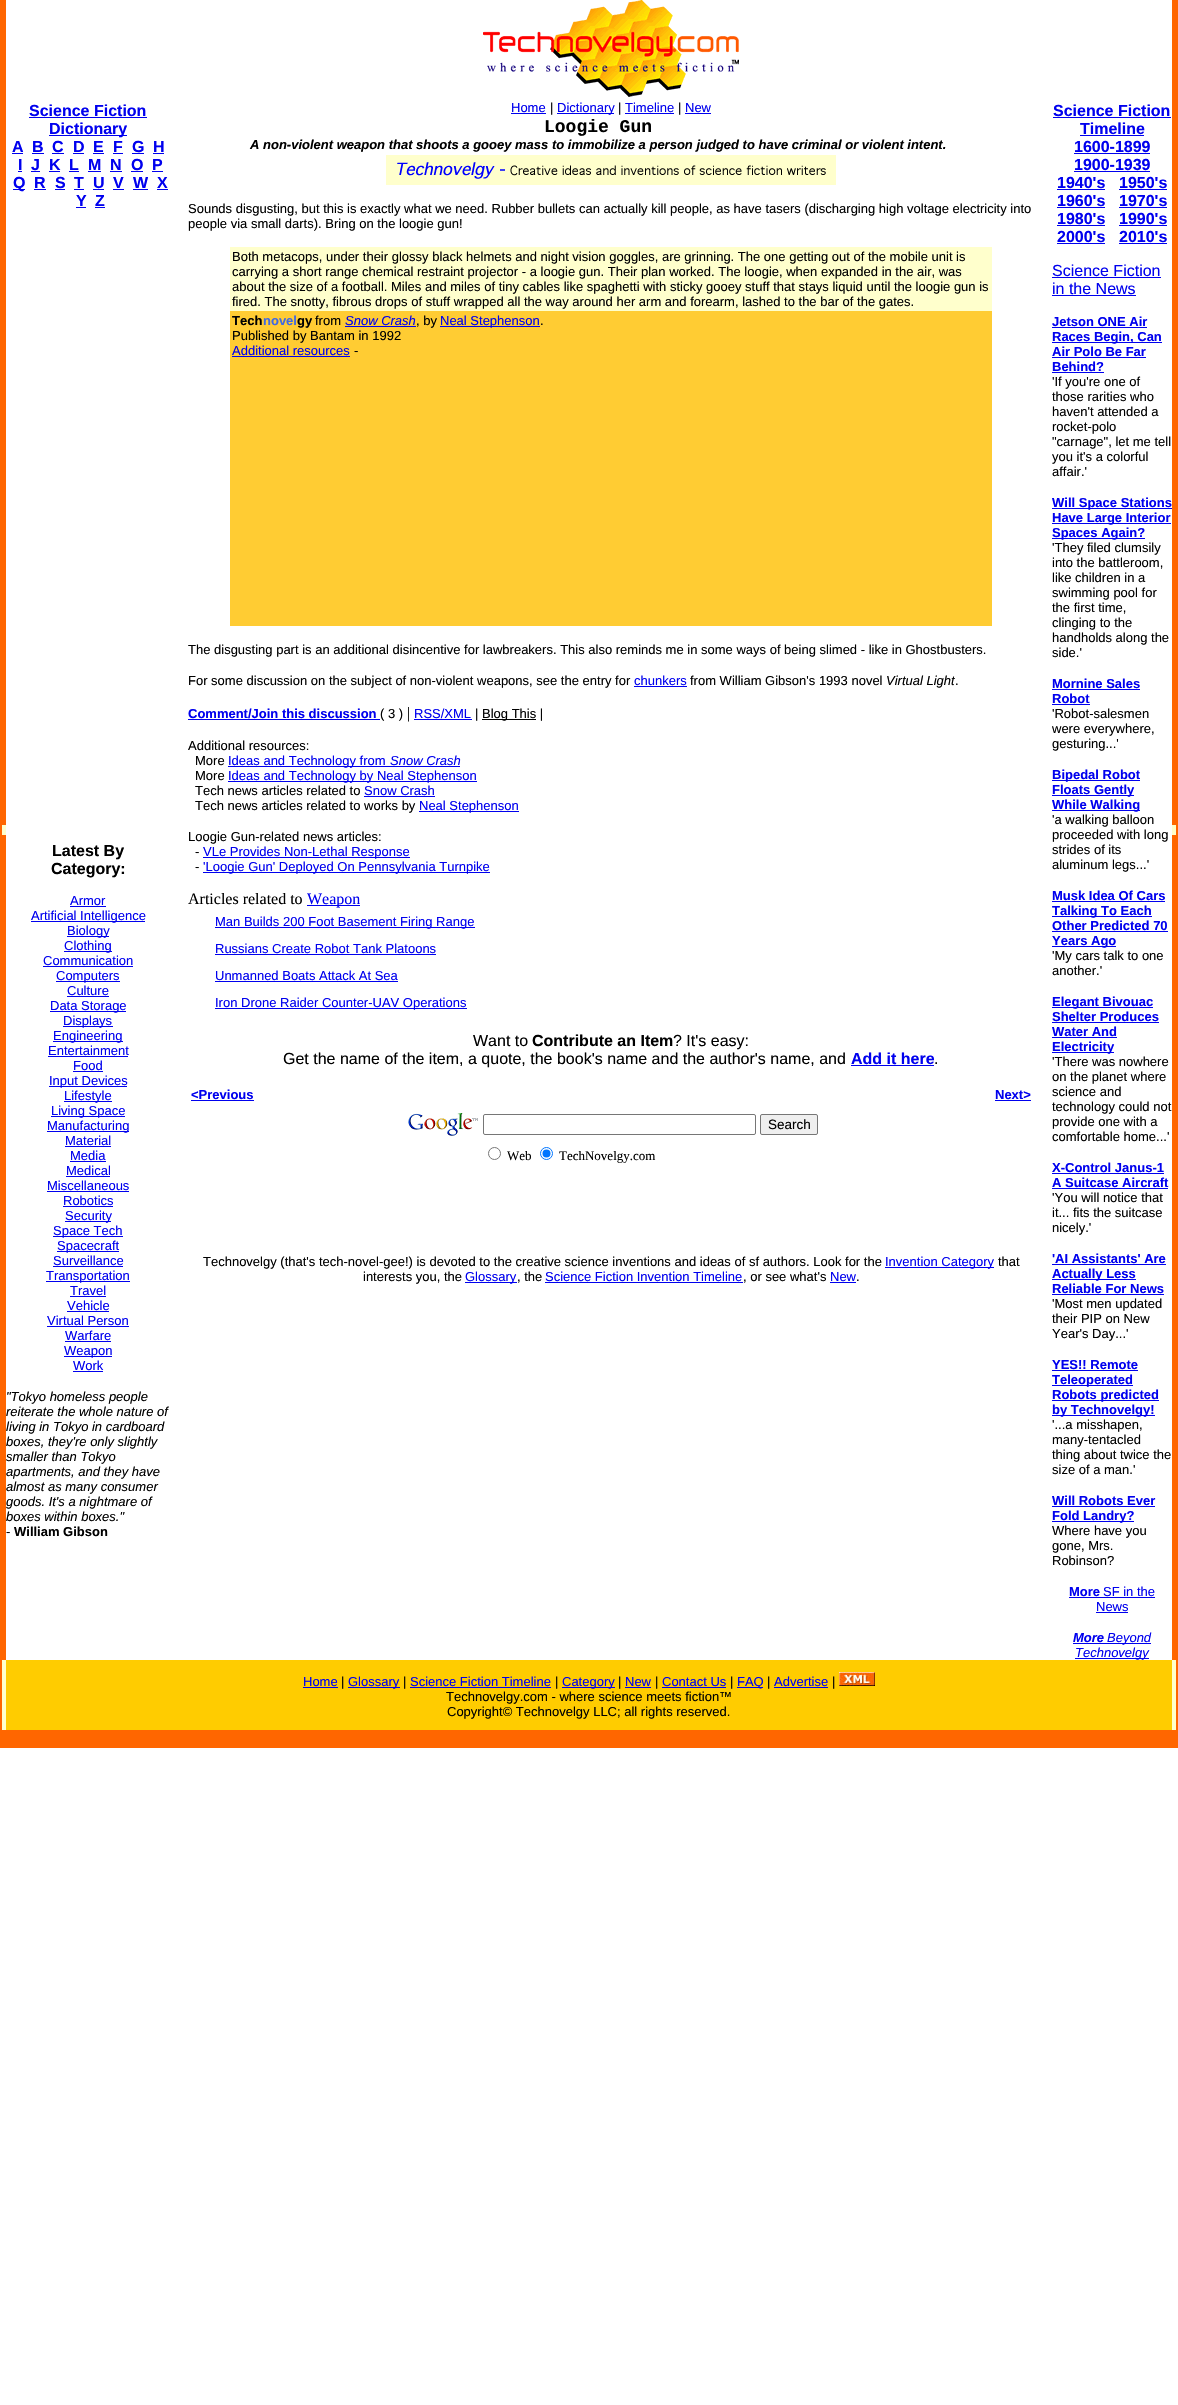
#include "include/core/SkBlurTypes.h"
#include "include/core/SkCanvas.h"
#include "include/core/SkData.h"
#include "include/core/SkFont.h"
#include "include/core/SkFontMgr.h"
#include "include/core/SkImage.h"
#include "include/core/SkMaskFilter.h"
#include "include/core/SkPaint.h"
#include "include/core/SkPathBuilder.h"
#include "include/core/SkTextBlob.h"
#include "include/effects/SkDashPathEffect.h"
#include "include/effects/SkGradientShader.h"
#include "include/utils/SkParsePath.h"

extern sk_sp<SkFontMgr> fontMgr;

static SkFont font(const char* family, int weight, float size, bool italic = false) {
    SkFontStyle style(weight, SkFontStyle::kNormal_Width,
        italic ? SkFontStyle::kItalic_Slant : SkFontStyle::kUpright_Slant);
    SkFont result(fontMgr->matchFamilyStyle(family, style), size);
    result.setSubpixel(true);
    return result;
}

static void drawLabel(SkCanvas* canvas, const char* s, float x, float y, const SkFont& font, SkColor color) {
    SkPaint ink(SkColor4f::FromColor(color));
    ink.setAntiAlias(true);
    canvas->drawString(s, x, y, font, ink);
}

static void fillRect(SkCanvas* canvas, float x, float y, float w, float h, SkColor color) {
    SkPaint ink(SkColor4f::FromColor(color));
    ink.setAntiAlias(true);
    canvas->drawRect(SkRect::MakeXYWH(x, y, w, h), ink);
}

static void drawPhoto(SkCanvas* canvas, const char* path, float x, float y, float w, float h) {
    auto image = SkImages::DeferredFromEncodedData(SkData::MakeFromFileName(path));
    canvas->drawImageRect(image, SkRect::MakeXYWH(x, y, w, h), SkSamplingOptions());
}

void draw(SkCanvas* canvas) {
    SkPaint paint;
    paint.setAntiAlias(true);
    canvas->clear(0xFFFFFFFF);
    fillRect(canvas, 0, 0, 6, 1660, 0xFFFF6600);
    fillRect(canvas, 2, 825, 4, 10, 0xFFFFFFCC);
    SkFont font1 = font("Liberation Sans", 700, 16);
    drawLabel(canvas, "Science Fiction", 29, 116, font1, 0xFF0000EE);
    fillRect(canvas, 29, 117, 118, 1, 0xFF0000EE);
    fillRect(canvas, 49, 135, 78, 1, 0xFF0000EE);
    drawLabel(canvas, "Dictionary", 49, 134, font1, 0xFF0000EE);
    drawLabel(canvas, "A", 12, 152, font1, 0xFF0000EE);
    fillRect(canvas, 12, 153, 11, 1, 0xFF0000EE);
    drawLabel(canvas, "B", 32, 152, font1, 0xFF0000EE);
    fillRect(canvas, 32, 153, 12, 1, 0xFF0000EE);
    drawLabel(canvas, "C", 52, 152, font1, 0xFF0000EE);
    fillRect(canvas, 52, 153, 12, 1, 0xFF0000EE);
    drawLabel(canvas, "D", 73, 152, font1, 0xFF0000EE);
    fillRect(canvas, 73, 153, 11, 1, 0xFF0000EE);
    drawLabel(canvas, "E", 93, 152, font1, 0xFF0000EE);
    fillRect(canvas, 93, 153, 11, 1, 0xFF0000EE);
    drawLabel(canvas, "F", 113, 152, font1, 0xFF0000EE);
    fillRect(canvas, 113, 153, 10, 1, 0xFF0000EE);
    drawLabel(canvas, "G", 132, 152, font1, 0xFF0000EE);
    fillRect(canvas, 132, 153, 12, 1, 0xFF0000EE);
    drawLabel(canvas, "H", 153, 152, font1, 0xFF0000EE);
    fillRect(canvas, 153, 153, 11, 1, 0xFF0000EE);
    drawLabel(canvas, "I", 18, 170, font1, 0xFF0000EE);
    fillRect(canvas, 18, 171, 4, 1, 0xFF0000EE);
    drawLabel(canvas, "J", 31, 170, font1, 0xFF0000EE);
    fillRect(canvas, 31, 171, 9, 1, 0xFF0000EE);
    drawLabel(canvas, "K", 49, 170, font1, 0xFF0000EE);
    fillRect(canvas, 49, 171, 11, 1, 0xFF0000EE);
    drawLabel(canvas, "L", 69, 170, font1, 0xFF0000EE);
    fillRect(canvas, 69, 171, 10, 1, 0xFF0000EE);
    drawLabel(canvas, "M", 88, 170, font1, 0xFF0000EE);
    fillRect(canvas, 88, 171, 13, 1, 0xFF0000EE);
    drawLabel(canvas, "N", 110, 170, font1, 0xFF0000EE);
    fillRect(canvas, 110, 171, 12, 1, 0xFF0000EE);
    drawLabel(canvas, "O", 131, 170, font1, 0xFF0000EE);
    fillRect(canvas, 131, 171, 12, 1, 0xFF0000EE);
    drawLabel(canvas, "P", 152, 170, font1, 0xFF0000EE);
    fillRect(canvas, 152, 171, 11, 1, 0xFF0000EE);
    fillRect(canvas, 13, 189, 12, 1, 0xFF0000EE);
    drawLabel(canvas, "Q", 13, 188, font1, 0xFF0000EE);
    drawLabel(canvas, "R", 34, 188, font1, 0xFF0000EE);
    fillRect(canvas, 34, 189, 12, 1, 0xFF0000EE);
    drawLabel(canvas, "S", 55, 188, font1, 0xFF0000EE);
    fillRect(canvas, 55, 189, 10, 1, 0xFF0000EE);
    drawLabel(canvas, "T", 74, 188, font1, 0xFF0000EE);
    fillRect(canvas, 74, 189, 10, 1, 0xFF0000EE);
    drawLabel(canvas, "U", 93, 188, font1, 0xFF0000EE);
    fillRect(canvas, 93, 189, 11, 1, 0xFF0000EE);
    drawLabel(canvas, "V", 113, 188, font1, 0xFF0000EE);
    fillRect(canvas, 113, 189, 11, 1, 0xFF0000EE);
    drawLabel(canvas, "W", 133, 188, font1, 0xFF0000EE);
    fillRect(canvas, 133, 189, 15, 1, 0xFF0000EE);
    drawLabel(canvas, "X", 157, 188, font1, 0xFF0000EE);
    fillRect(canvas, 157, 189, 11, 1, 0xFF0000EE);
    drawLabel(canvas, "Y", 76, 206, font1, 0xFF0000EE);
    fillRect(canvas, 76, 207, 10, 1, 0xFF0000EE);
    drawLabel(canvas, "Z", 95, 206, font1, 0xFF0000EE);
    fillRect(canvas, 95, 207, 10, 1, 0xFF0000EE);
    drawLabel(canvas, "Latest By", 52, 856, font1, 0xFF000000);
    drawLabel(canvas, "Category:", 51, 874, font1, 0xFF000000);
    SkFont font2 = font("Liberation Sans", 400, 13);
    drawLabel(canvas, "Armor", 70, 905, font2, 0xFF0000EE);
    fillRect(canvas, 70, 906, 36, 1, 0xFF0000EE);
    fillRect(canvas, 31, 921, 114, 1, 0xFF0000EE);
    drawLabel(canvas, "Artificial Intelligence", 31, 920, font2, 0xFF0000EE);
    fillRect(canvas, 67, 936, 42, 1, 0xFF0000EE);
    drawLabel(canvas, "Biology", 67, 935, font2, 0xFF0000EE);
    fillRect(canvas, 64, 951, 48, 1, 0xFF0000EE);
    drawLabel(canvas, "Clothing", 64, 950, font2, 0xFF0000EE);
    drawLabel(canvas, "Communication", 43, 965, font2, 0xFF0000EE);
    fillRect(canvas, 43, 966, 90, 1, 0xFF0000EE);
    fillRect(canvas, 56, 981, 64, 1, 0xFF0000EE);
    drawLabel(canvas, "Computers", 56, 980, font2, 0xFF0000EE);
    drawLabel(canvas, "Culture", 67, 995, font2, 0xFF0000EE);
    fillRect(canvas, 67, 996, 42, 1, 0xFF0000EE);
    fillRect(canvas, 50, 1011, 76, 1, 0xFF0000EE);
    drawLabel(canvas, "Data Storage", 50, 1010, font2, 0xFF0000EE);
    fillRect(canvas, 63, 1026, 50, 1, 0xFF0000EE);
    drawLabel(canvas, "Displays", 63, 1025, font2, 0xFF0000EE);
    fillRect(canvas, 53, 1041, 70, 1, 0xFF0000EE);
    drawLabel(canvas, "Engineering", 53, 1040, font2, 0xFF0000EE);
    drawLabel(canvas, "Entertainment", 48, 1055, font2, 0xFF0000EE);
    fillRect(canvas, 48, 1056, 80, 1, 0xFF0000EE);
    drawLabel(canvas, "Food", 73, 1070, font2, 0xFF0000EE);
    fillRect(canvas, 73, 1071, 30, 1, 0xFF0000EE);
    fillRect(canvas, 49, 1086, 78, 1, 0xFF0000EE);
    drawLabel(canvas, "Input Devices", 49, 1085, font2, 0xFF0000EE);
    fillRect(canvas, 64, 1101, 48, 1, 0xFF0000EE);
    drawLabel(canvas, "Lifestyle", 64, 1100, font2, 0xFF0000EE);
    fillRect(canvas, 51, 1116, 74, 1, 0xFF0000EE);
    drawLabel(canvas, "Living Space", 51, 1115, font2, 0xFF0000EE);
    fillRect(canvas, 47, 1131, 82, 1, 0xFF0000EE);
    drawLabel(canvas, "Manufacturing", 47, 1130, font2, 0xFF0000EE);
    drawLabel(canvas, "Material", 65, 1145, font2, 0xFF0000EE);
    fillRect(canvas, 65, 1146, 46, 1, 0xFF0000EE);
    drawLabel(canvas, "Media", 70, 1160, font2, 0xFF0000EE);
    fillRect(canvas, 70, 1161, 36, 1, 0xFF0000EE);
    drawLabel(canvas, "Medical", 66, 1175, font2, 0xFF0000EE);
    fillRect(canvas, 66, 1176, 44, 1, 0xFF0000EE);
    drawLabel(canvas, "Miscellaneous", 47, 1190, font2, 0xFF0000EE);
    fillRect(canvas, 47, 1191, 82, 1, 0xFF0000EE);
    drawLabel(canvas, "Robotics", 63, 1205, font2, 0xFF0000EE);
    fillRect(canvas, 63, 1206, 50, 1, 0xFF0000EE);
    fillRect(canvas, 65, 1221, 46, 1, 0xFF0000EE);
    drawLabel(canvas, "Security", 65, 1220, font2, 0xFF0000EE);
    fillRect(canvas, 53, 1236, 70, 1, 0xFF0000EE);
    drawLabel(canvas, "Space Tech", 53, 1235, font2, 0xFF0000EE);
    fillRect(canvas, 57, 1251, 62, 1, 0xFF0000EE);
    drawLabel(canvas, "Spacecraft", 57, 1250, font2, 0xFF0000EE);
    drawLabel(canvas, "Surveillance", 53, 1265, font2, 0xFF0000EE);
    fillRect(canvas, 53, 1266, 70, 1, 0xFF0000EE);
    fillRect(canvas, 46, 1281, 84, 1, 0xFF0000EE);
    drawLabel(canvas, "Transportation", 46, 1280, font2, 0xFF0000EE);
    drawLabel(canvas, "Travel", 70, 1295, font2, 0xFF0000EE);
    fillRect(canvas, 70, 1296, 36, 1, 0xFF0000EE);
    drawLabel(canvas, "Vehicle", 67, 1310, font2, 0xFF0000EE);
    fillRect(canvas, 67, 1311, 42, 1, 0xFF0000EE);
    drawLabel(canvas, "Virtual Person", 47, 1325, font2, 0xFF0000EE);
    fillRect(canvas, 47, 1326, 82, 1, 0xFF0000EE);
    drawLabel(canvas, "Warfare", 65, 1340, font2, 0xFF0000EE);
    fillRect(canvas, 65, 1341, 46, 1, 0xFF0000EE);
    fillRect(canvas, 64, 1356, 48, 1, 0xFF0000EE);
    drawLabel(canvas, "Weapon", 64, 1355, font2, 0xFF0000EE);
    drawLabel(canvas, "Work", 73, 1370, font2, 0xFF0000EE);
    fillRect(canvas, 73, 1371, 30, 1, 0xFF0000EE);
    SkFont font3 = font("Liberation Sans", 400, 13, true);
    drawLabel(canvas, "\"Tokyo homeless people", 6, 1401, font3, 0xFF000000);
    drawLabel(canvas, "reiterate the whole nature of", 6, 1416, font3, 0xFF000000);
    drawLabel(canvas, "living in Tokyo in cardboard", 6, 1431, font3, 0xFF000000);
    drawLabel(canvas, "boxes, they're only slightly", 6, 1446, font3, 0xFF000000);
    drawLabel(canvas, "smaller than Tokyo", 6, 1461, font3, 0xFF000000);
    drawLabel(canvas, "apartments, and they have", 6, 1476, font3, 0xFF000000);
    drawLabel(canvas, "almost as many consumer", 6, 1491, font3, 0xFF000000);
    drawLabel(canvas, "goods. It's a nightmare of", 6, 1506, font3, 0xFF000000);
    drawLabel(canvas, "boxes within boxes.\"", 6, 1521, font3, 0xFF000000);
    drawLabel(canvas, "-", 6, 1536, font2, 0xFF000000);
    SkFont font4 = font("Liberation Sans", 700, 13);
    drawLabel(canvas, "William Gibson", 14, 1536, font4, 0xFF000000);
    drawPhoto(canvas, "assets/img1.png", 483, 0, 256, 97);
    drawLabel(canvas, "Home", 511, 112, font2, 0xFF0000EE);
    fillRect(canvas, 511, 113, 35, 1, 0xFF0000EE);
    drawLabel(canvas, "|", 550, 112, font2, 0xFF000000);
    fillRect(canvas, 557, 113, 57, 1, 0xFF0000EE);
    drawLabel(canvas, "Dictionary", 557, 112, font2, 0xFF0000EE);
    drawLabel(canvas, "|", 618, 112, font2, 0xFF000000);
    drawLabel(canvas, "Timeline", 625, 112, font2, 0xFF0000EE);
    fillRect(canvas, 625, 113, 49, 1, 0xFF0000EE);
    drawLabel(canvas, "|", 678, 112, font2, 0xFF000000);
    drawLabel(canvas, "New", 685, 112, font2, 0xFF0000EE);
    fillRect(canvas, 685, 113, 26, 1, 0xFF0000EE);
    SkFont font5 = font("Liberation Mono", 700, 18);
    drawLabel(canvas, "Loogie Gun", 544, 132, font5, 0xFF000000);
    SkFont font6 = font("Liberation Sans", 700, 13, true);
    drawLabel(canvas, "A non-violent weapon that shoots a gooey mass to immobilize a person judged to have criminal or violent intent.", 250, 149, font6, 0xFF000000);
    drawPhoto(canvas, "assets/img2.png", 386, 155, 450, 30);
    drawLabel(canvas, "Sounds disgusting, but this is exactly what we need. Rubber bullets can actually kill people, as have tasers (discharging high voltage electricity into", 188, 213, font2, 0xFF000000);
    drawLabel(canvas, "people via small darts). Bring on the loogie gun!", 188, 228, font2, 0xFF000000);
    fillRect(canvas, 230, 247, 762, 64, 0xFFFFFFCC);
    drawLabel(canvas, "Both metacops, under their glossy black helmets and night vision goggles, are grinning. The one getting out of the mobile unit is", 232, 261, font2, 0xFF000000);
    drawLabel(canvas, "carrying a short range chemical restraint projector - a loogie gun. Their plan worked. The loogie, when expanded in the air, was", 232, 276, font2, 0xFF000000);
    drawLabel(canvas, "about the size of a football. Miles and miles of tiny cables like spaghetti with sticky gooey stuff that stays liquid until the loogie gun is", 232, 291, font2, 0xFF000000);
    drawLabel(canvas, "fired. The snotty, fibrous drops of stuff wrapped all the way around her arm and forearm, lashed to the bar of the gates.", 232, 306, font2, 0xFF000000);
    fillRect(canvas, 230, 311, 762, 315, 0xFFFFCC33);
    drawLabel(canvas, "Tech", 232, 325, font4, 0xFF000000);
    drawLabel(canvas, "novel", 263, 325, font4, 0xFF4169E1);
    drawLabel(canvas, "gy", 297, 325, font4, 0xFF000000);
    drawLabel(canvas, "from", 315, 325, font2, 0xFF000000);
    drawLabel(canvas, "Snow Crash", 345, 325, font3, 0xFF0000EE);
    drawLabel(canvas, ", by", 416, 325, font2, 0xFF000000);
    fillRect(canvas, 345, 326, 71, 1, 0xFF0000EE);
    fillRect(canvas, 440, 326, 100, 1, 0xFF0000EE);
    drawLabel(canvas, "Neal Stephenson", 440, 325, font2, 0xFF0000EE);
    drawLabel(canvas, ".", 540, 325, font2, 0xFF000000);
    drawLabel(canvas, "Published by Bantam in 1992", 232, 340, font2, 0xFF000000);
    drawLabel(canvas, "Additional resources", 232, 355, font2, 0xFF0000EE);
    fillRect(canvas, 232, 356, 118, 1, 0xFF0000EE);
    drawLabel(canvas, "-", 354, 355, font2, 0xFF000000);
    drawLabel(canvas, "The disgusting part is an additional disincentive for lawbreakers. This also reminds me in some ways of being slimed - like in Ghostbusters.", 188, 654, font2, 0xFF000000);
    drawLabel(canvas, "For some discussion on the subject of non-violent weapons, see the entry for", 188, 685, font2, 0xFF000000);
    drawLabel(canvas, "chunkers", 634, 685, font2, 0xFF0000EE);
    fillRect(canvas, 634, 686, 53, 1, 0xFF0000EE);
    drawLabel(canvas, "from William Gibson's 1993 novel", 690, 685, font2, 0xFF000000);
    drawLabel(canvas, "Virtual Light", 886, 685, font3, 0xFF000000);
    drawLabel(canvas, ".", 955, 685, font2, 0xFF000000);
    drawLabel(canvas, "Comment/Join this discussion", 188, 718, font4, 0xFF0000EE);
    drawLabel(canvas, "( 3 )", 380, 718, font2, 0xFF000000);
    fillRect(canvas, 188, 719, 192, 1, 0xFF0000EE);
    SkFont font7 = font("Liberation Serif", 400, 16);
    drawLabel(canvas, "|", 407, 718, font7, 0xFF000000);
    drawLabel(canvas, "RSS/XML", 414, 718, font2, 0xFF0000EE);
    fillRect(canvas, 414, 719, 58, 1, 0xFF0000EE);
    drawLabel(canvas, "|", 475, 718, font2, 0xFF000000);
    fillRect(canvas, 482, 719, 54, 1, 0xFF000000);
    drawLabel(canvas, "Blog This |", 482, 718, font2, 0xFF000000);
    drawLabel(canvas, "Additional resources:", 188, 750, font2, 0xFF000000);
    drawLabel(canvas, "More", 195, 765, font2, 0xFF000000);
    fillRect(canvas, 228, 766, 232, 1, 0xFF0000EE);
    drawLabel(canvas, "Ideas and Technology from", 228, 765, font2, 0xFF0000EE);
    drawLabel(canvas, "Snow Crash", 390, 765, font3, 0xFF0000EE);
    drawLabel(canvas, "More", 195, 780, font2, 0xFF000000);
    fillRect(canvas, 228, 781, 249, 1, 0xFF0000EE);
    drawLabel(canvas, "Ideas and Technology by Neal Stephenson", 228, 780, font2, 0xFF0000EE);
    drawLabel(canvas, "Tech news articles related to", 195, 795, font2, 0xFF000000);
    drawLabel(canvas, "Snow Crash", 364, 795, font2, 0xFF0000EE);
    fillRect(canvas, 364, 796, 71, 1, 0xFF0000EE);
    drawLabel(canvas, "Tech news articles related to works by", 195, 810, font2, 0xFF000000);
    fillRect(canvas, 419, 811, 100, 1, 0xFF0000EE);
    drawLabel(canvas, "Neal Stephenson", 419, 810, font2, 0xFF0000EE);
    drawLabel(canvas, "Loogie Gun-related news articles:", 188, 841, font2, 0xFF000000);
    drawLabel(canvas, "-", 195, 856, font2, 0xFF000000);
    fillRect(canvas, 203, 857, 207, 1, 0xFF0000EE);
    drawLabel(canvas, "VLe Provides Non-Lethal Response", 203, 856, font2, 0xFF0000EE);
    drawLabel(canvas, "-", 195, 871, font2, 0xFF000000);
    fillRect(canvas, 203, 872, 287, 1, 0xFF0000EE);
    drawLabel(canvas, "'Loogie Gun' Deployed On Pennsylvania Turnpike", 203, 871, font2, 0xFF0000EE);
    drawLabel(canvas, "Articles related to", 188, 904, font7, 0xFF000000);
    fillRect(canvas, 307, 905, 53, 1, 0xFF0000EE);
    drawLabel(canvas, "Weapon", 307, 904, font7, 0xFF0000EE);
    fillRect(canvas, 215, 927, 260, 1, 0xFF0000EE);
    drawLabel(canvas, "Man Builds 200 Foot Basement Firing Range", 215, 926, font2, 0xFF0000EE);
    drawLabel(canvas, "Russians Create Robot Tank Platoons", 215, 953, font2, 0xFF0000EE);
    fillRect(canvas, 215, 954, 221, 1, 0xFF0000EE);
    drawLabel(canvas, "Unmanned Boats Attack At Sea", 215, 980, font2, 0xFF0000EE);
    fillRect(canvas, 215, 981, 183, 1, 0xFF0000EE);
    fillRect(canvas, 215, 1008, 252, 1, 0xFF0000EE);
    drawLabel(canvas, "Iron Drone Raider Counter-UAV Operations", 215, 1007, font2, 0xFF0000EE);
    SkFont font8 = font("Liberation Sans", 400, 16);
    drawLabel(canvas, "Want to", 473, 1046, font8, 0xFF000000);
    drawLabel(canvas, "Contribute an Item", 532, 1046, font1, 0xFF000000);
    drawLabel(canvas, "? It's easy:", 673, 1046, font8, 0xFF000000);
    drawLabel(canvas, "Get the name of the item, a quote, the book's name and the author's name, and", 283, 1064, font8, 0xFF000000);
    drawLabel(canvas, "Add it here", 851, 1064, font1, 0xFF0000EE);
    drawLabel(canvas, ".", 934, 1064, font8, 0xFF000000);
    fillRect(canvas, 851, 1065, 83, 1, 0xFF0000EE);
    drawLabel(canvas, "<Previous", 191, 1099, font4, 0xFF0000EE);
    fillRect(canvas, 191, 1100, 63, 1, 0xFF0000EE);
    drawLabel(canvas, "Next>", 995, 1099, font4, 0xFF0000EE);
    fillRect(canvas, 995, 1100, 36, 1, 0xFF0000EE);
    drawPhoto(canvas, "assets/img3.png", 408, 1113, 70, 23);
    paint.setStroke(true);
    paint.setStrokeWidth(1);
    paint.setColor(0xFF767676);
    canvas->drawRoundRect(SkRect::MakeXYWH(483.5f, 1114.5f, 272, 20), 1.5f, 1.5f, paint);
    paint.setStroke(false);
    paint.setColor(0xFFEFEFEF);
    canvas->drawRoundRect(SkRect::MakeXYWH(760.5f, 1114.5f, 57, 20), 1.5f, 1.5f, paint);
    paint.setStroke(true);
    paint.setColor(0xFF767676);
    canvas->drawRoundRect(SkRect::MakeXYWH(760.5f, 1114.5f, 57, 20), 1.5f, 1.5f, paint);
    SkFont font9 = font("Liberation Sans", 400, 13.5f);
    drawLabel(canvas, "Search", 768, 1129, font9, 0xFF000000);
    canvas->drawCircle(494.5f, 1153.5f, 6, paint);
    SkFont font10 = font("Liberation Serif", 400, 13);
    drawLabel(canvas, "Web", 507, 1160, font10, 0xFF000000);
    paint.setColor(0xFF0075FF);
    canvas->drawCircle(546.5f, 1153.5f, 6, paint);
    paint.setStroke(false);
    canvas->drawCircle(546.5f, 1153.5f, 4, paint);
    drawLabel(canvas, "TechNovelgy.com", 559, 1160, font10, 0xFF000000);
    drawLabel(canvas, "Technovelgy (that's tech-novel-gee!) is devoted to the creative science inventions and ideas of sf authors. Look for the", 203, 1266, font2, 0xFF000000);
    fillRect(canvas, 885, 1267, 109, 1, 0xFF0000EE);
    drawLabel(canvas, "Invention Category", 885, 1266, font2, 0xFF0000EE);
    drawLabel(canvas, "that", 998, 1266, font2, 0xFF000000);
    drawLabel(canvas, "interests you, the", 363, 1281, font2, 0xFF000000);
    fillRect(canvas, 465, 1282, 52, 1, 0xFF0000EE);
    drawLabel(canvas, "Glossary", 465, 1281, font2, 0xFF0000EE);
    drawLabel(canvas, ", the", 517, 1281, font2, 0xFF000000);
    drawLabel(canvas, "Science Fiction Invention Timeline", 545, 1281, font2, 0xFF0000EE);
    drawLabel(canvas, ", or see what's", 743, 1281, font2, 0xFF000000);
    fillRect(canvas, 545, 1282, 198, 1, 0xFF0000EE);
    drawLabel(canvas, "New", 830, 1281, font2, 0xFF0000EE);
    drawLabel(canvas, ".", 856, 1281, font2, 0xFF000000);
    fillRect(canvas, 830, 1282, 26, 1, 0xFF0000EE);
    drawLabel(canvas, "Science Fiction", 1053, 116, font1, 0xFF0000EE);
    fillRect(canvas, 1053, 117, 118, 1, 0xFF0000EE);
    drawLabel(canvas, "Timeline", 1080, 134, font1, 0xFF0000EE);
    fillRect(canvas, 1080, 135, 64, 1, 0xFF0000EE);
    drawLabel(canvas, "1600-1899", 1074, 152, font1, 0xFF0000EE);
    fillRect(canvas, 1074, 153, 76, 1, 0xFF0000EE);
    drawLabel(canvas, "1900-1939", 1074, 170, font1, 0xFF0000EE);
    fillRect(canvas, 1074, 171, 76, 1, 0xFF0000EE);
    drawLabel(canvas, "1940's", 1057, 188, font1, 0xFF0000EE);
    fillRect(canvas, 1057, 189, 48, 1, 0xFF0000EE);
    drawLabel(canvas, "1950's", 1119, 188, font1, 0xFF0000EE);
    fillRect(canvas, 1119, 189, 48, 1, 0xFF0000EE);
    drawLabel(canvas, "1960's", 1057, 206, font1, 0xFF0000EE);
    fillRect(canvas, 1057, 207, 48, 1, 0xFF0000EE);
    drawLabel(canvas, "1970's", 1119, 206, font1, 0xFF0000EE);
    fillRect(canvas, 1119, 207, 48, 1, 0xFF0000EE);
    drawLabel(canvas, "1980's", 1057, 224, font1, 0xFF0000EE);
    fillRect(canvas, 1057, 225, 48, 1, 0xFF0000EE);
    drawLabel(canvas, "1990's", 1119, 224, font1, 0xFF0000EE);
    fillRect(canvas, 1119, 225, 48, 1, 0xFF0000EE);
    drawLabel(canvas, "2000's", 1057, 242, font1, 0xFF0000EE);
    fillRect(canvas, 1057, 243, 48, 1, 0xFF0000EE);
    drawLabel(canvas, "2010's", 1119, 242, font1, 0xFF0000EE);
    fillRect(canvas, 1119, 243, 48, 1, 0xFF0000EE);
    drawLabel(canvas, "Science Fiction", 1052, 276, font8, 0xFF0000EE);
    fillRect(canvas, 1052, 277, 109, 1, 0xFF0000EE);
    drawLabel(canvas, "in the News", 1052, 294, font8, 0xFF0000EE);
    fillRect(canvas, 1052, 295, 84, 1, 0xFF0000EE);
    drawLabel(canvas, "Jetson ONE Air", 1052, 326, font4, 0xFF0000EE);
    fillRect(canvas, 1052, 327, 95, 1, 0xFF0000EE);
    fillRect(canvas, 1052, 342, 110, 1, 0xFF0000EE);
    drawLabel(canvas, "Races Begin, Can", 1052, 341, font4, 0xFF0000EE);
    drawLabel(canvas, "Air Polo Be Far", 1052, 356, font4, 0xFF0000EE);
    fillRect(canvas, 1052, 357, 94, 1, 0xFF0000EE);
    drawLabel(canvas, "Behind?", 1052, 371, font4, 0xFF0000EE);
    fillRect(canvas, 1052, 372, 52, 1, 0xFF0000EE);
    drawLabel(canvas, "'If you're one of", 1052, 386, font2, 0xFF000000);
    drawLabel(canvas, "those rarities who", 1052, 401, font2, 0xFF000000);
    drawLabel(canvas, "haven't attended a", 1052, 416, font2, 0xFF000000);
    drawLabel(canvas, "rocket-polo", 1052, 431, font2, 0xFF000000);
    drawLabel(canvas, "\"carnage\", let me tell", 1052, 446, font2, 0xFF000000);
    drawLabel(canvas, "you it's a colorful", 1052, 461, font2, 0xFF000000);
    drawLabel(canvas, "affair.'", 1052, 476, font2, 0xFF000000);
    fillRect(canvas, 1052, 508, 120, 1, 0xFF0000EE);
    drawLabel(canvas, "Will Space Stations", 1052, 507, font4, 0xFF0000EE);
    fillRect(canvas, 1052, 523, 119, 1, 0xFF0000EE);
    drawLabel(canvas, "Have Large Interior", 1052, 522, font4, 0xFF0000EE);
    fillRect(canvas, 1052, 538, 93, 1, 0xFF0000EE);
    drawLabel(canvas, "Spaces Again?", 1052, 537, font4, 0xFF0000EE);
    drawLabel(canvas, "'They filed clumsily", 1052, 552, font2, 0xFF000000);
    drawLabel(canvas, "into the battleroom,", 1052, 567, font2, 0xFF000000);
    drawLabel(canvas, "like children in a", 1052, 582, font2, 0xFF000000);
    drawLabel(canvas, "swimming pool for", 1052, 597, font2, 0xFF000000);
    drawLabel(canvas, "the first time,", 1052, 612, font2, 0xFF000000);
    drawLabel(canvas, "clinging to the", 1052, 627, font2, 0xFF000000);
    drawLabel(canvas, "handholds along the", 1052, 642, font2, 0xFF000000);
    drawLabel(canvas, "side.'", 1052, 657, font2, 0xFF000000);
    drawLabel(canvas, "Mornine Sales", 1052, 688, font4, 0xFF0000EE);
    fillRect(canvas, 1052, 689, 88, 1, 0xFF0000EE);
    drawLabel(canvas, "Robot", 1052, 703, font4, 0xFF0000EE);
    fillRect(canvas, 1052, 704, 38, 1, 0xFF0000EE);
    drawLabel(canvas, "'Robot-salesmen", 1052, 718, font2, 0xFF000000);
    drawLabel(canvas, "were everywhere,", 1052, 733, font2, 0xFF000000);
    drawLabel(canvas, "gesturing...'", 1052, 748, font2, 0xFF000000);
    fillRect(canvas, 1052, 780, 88, 1, 0xFF0000EE);
    drawLabel(canvas, "Bipedal Robot", 1052, 779, font4, 0xFF0000EE);
    fillRect(canvas, 1052, 795, 82, 1, 0xFF0000EE);
    drawLabel(canvas, "Floats Gently", 1052, 794, font4, 0xFF0000EE);
    fillRect(canvas, 1052, 810, 88, 1, 0xFF0000EE);
    drawLabel(canvas, "While Walking", 1052, 809, font4, 0xFF0000EE);
    drawLabel(canvas, "'a walking balloon", 1052, 824, font2, 0xFF000000);
    drawLabel(canvas, "proceeded with long", 1052, 839, font2, 0xFF000000);
    drawLabel(canvas, "strides of its", 1052, 854, font2, 0xFF000000);
    drawLabel(canvas, "aluminum legs...'", 1052, 869, font2, 0xFF000000);
    drawLabel(canvas, "Musk Idea Of Cars", 1052, 900, font4, 0xFF0000EE);
    fillRect(canvas, 1052, 901, 113, 1, 0xFF0000EE);
    fillRect(canvas, 1052, 916, 100, 1, 0xFF0000EE);
    drawLabel(canvas, "Talking To Each", 1052, 915, font4, 0xFF0000EE);
    drawLabel(canvas, "Other Predicted 70", 1052, 930, font4, 0xFF0000EE);
    fillRect(canvas, 1052, 931, 116, 1, 0xFF0000EE);
    fillRect(canvas, 1052, 946, 64, 1, 0xFF0000EE);
    drawLabel(canvas, "Years Ago", 1052, 945, font4, 0xFF0000EE);
    drawLabel(canvas, "'My cars talk to one", 1052, 960, font2, 0xFF000000);
    drawLabel(canvas, "another.'", 1052, 975, font2, 0xFF000000);
    fillRect(canvas, 1052, 1007, 101, 1, 0xFF0000EE);
    drawLabel(canvas, "Elegant Bivouac", 1052, 1006, font4, 0xFF0000EE);
    drawLabel(canvas, "Shelter Produces", 1052, 1021, font4, 0xFF0000EE);
    fillRect(canvas, 1052, 1022, 107, 1, 0xFF0000EE);
    drawLabel(canvas, "Water And", 1052, 1036, font4, 0xFF0000EE);
    fillRect(canvas, 1052, 1037, 65, 1, 0xFF0000EE);
    fillRect(canvas, 1052, 1052, 62, 1, 0xFF0000EE);
    drawLabel(canvas, "Electricity", 1052, 1051, font4, 0xFF0000EE);
    drawLabel(canvas, "'There was nowhere", 1052, 1066, font2, 0xFF000000);
    drawLabel(canvas, "on the planet where", 1052, 1081, font2, 0xFF000000);
    drawLabel(canvas, "science and", 1052, 1096, font2, 0xFF000000);
    drawLabel(canvas, "technology could not", 1052, 1111, font2, 0xFF000000);
    drawLabel(canvas, "provide one with a", 1052, 1126, font2, 0xFF000000);
    drawLabel(canvas, "comfortable home...'", 1052, 1141, font2, 0xFF000000);
    drawLabel(canvas, "X-Control Janus-1", 1052, 1172, font4, 0xFF0000EE);
    fillRect(canvas, 1052, 1173, 112, 1, 0xFF0000EE);
    drawLabel(canvas, "A Suitcase Aircraft", 1052, 1187, font4, 0xFF0000EE);
    fillRect(canvas, 1052, 1188, 116, 1, 0xFF0000EE);
    drawLabel(canvas, "'You will notice that", 1052, 1202, font2, 0xFF000000);
    drawLabel(canvas, "it... fits the suitcase", 1052, 1217, font2, 0xFF000000);
    drawLabel(canvas, "nicely.'", 1052, 1232, font2, 0xFF000000);
    drawLabel(canvas, "'AI Assistants' Are", 1052, 1263, font4, 0xFF0000EE);
    fillRect(canvas, 1052, 1264, 114, 1, 0xFF0000EE);
    fillRect(canvas, 1052, 1279, 84, 1, 0xFF0000EE);
    drawLabel(canvas, "Actually Less", 1052, 1278, font4, 0xFF0000EE);
    drawLabel(canvas, "Reliable For News", 1052, 1293, font4, 0xFF0000EE);
    fillRect(canvas, 1052, 1294, 112, 1, 0xFF0000EE);
    drawLabel(canvas, "'Most men updated", 1052, 1308, font2, 0xFF000000);
    drawLabel(canvas, "their PIP on New", 1052, 1323, font2, 0xFF000000);
    drawLabel(canvas, "Year's Day...'", 1052, 1338, font2, 0xFF000000);
    drawLabel(canvas, "YES!! Remote", 1052, 1369, font4, 0xFF0000EE);
    fillRect(canvas, 1052, 1370, 86, 1, 0xFF0000EE);
    fillRect(canvas, 1052, 1385, 81, 1, 0xFF0000EE);
    drawLabel(canvas, "Teleoperated", 1052, 1384, font4, 0xFF0000EE);
    fillRect(canvas, 1052, 1400, 107, 1, 0xFF0000EE);
    drawLabel(canvas, "Robots predicted", 1052, 1399, font4, 0xFF0000EE);
    fillRect(canvas, 1052, 1415, 103, 1, 0xFF0000EE);
    drawLabel(canvas, "by Technovelgy!", 1052, 1414, font4, 0xFF0000EE);
    drawLabel(canvas, "'...a misshapen,", 1052, 1429, font2, 0xFF000000);
    drawLabel(canvas, "many-tentacled", 1052, 1444, font2, 0xFF000000);
    drawLabel(canvas, "thing about twice the", 1052, 1459, font2, 0xFF000000);
    drawLabel(canvas, "size of a man.'", 1052, 1474, font2, 0xFF000000);
    drawLabel(canvas, "Will Robots Ever", 1052, 1505, font4, 0xFF0000EE);
    fillRect(canvas, 1052, 1506, 103, 1, 0xFF0000EE);
    fillRect(canvas, 1052, 1521, 82, 1, 0xFF0000EE);
    drawLabel(canvas, "Fold Landry?", 1052, 1520, font4, 0xFF0000EE);
    drawLabel(canvas, "Where have you", 1052, 1535, font2, 0xFF000000);
    drawLabel(canvas, "gone, Mrs.", 1052, 1550, font2, 0xFF000000);
    drawLabel(canvas, "Robinson?", 1052, 1565, font2, 0xFF000000);
    drawLabel(canvas, "More", 1069, 1596, font4, 0xFF0000EE);
    fillRect(canvas, 1069, 1597, 86, 1, 0xFF0000EE);
    drawLabel(canvas, "SF in the", 1103, 1596, font2, 0xFF0000EE);
    drawLabel(canvas, "News", 1096, 1611, font2, 0xFF0000EE);
    fillRect(canvas, 1096, 1612, 32, 1, 0xFF0000EE);
    drawLabel(canvas, "More", 1073, 1642, font6, 0xFF0000EE);
    fillRect(canvas, 1073, 1643, 78, 1, 0xFF0000EE);
    drawLabel(canvas, "Beyond", 1107, 1642, font3, 0xFF0000EE);
    fillRect(canvas, 1075, 1658, 74, 1, 0xFF0000EE);
    drawLabel(canvas, "Technovelgy", 1075, 1657, font3, 0xFF0000EE);
    fillRect(canvas, 1172, 0, 6, 1660, 0xFFFF6600);
    fillRect(canvas, 1172, 825, 4, 10, 0xFFFFFFCC);
    fillRect(canvas, 0, 1660, 2, 70, 0xFFFF6600);
    fillRect(canvas, 2, 1660, 4, 70, 0xFFFFFFCC);
    fillRect(canvas, 6, 1660, 1166, 70, 0xFFFFCC00);
    drawLabel(canvas, "Home", 303, 1686, font2, 0xFF0000EE);
    fillRect(canvas, 303, 1687, 35, 1, 0xFF0000EE);
    drawLabel(canvas, "|", 341, 1686, font2, 0xFF000000);
    fillRect(canvas, 348, 1687, 52, 1, 0xFF0000EE);
    drawLabel(canvas, "Glossary", 348, 1686, font2, 0xFF0000EE);
    drawLabel(canvas, "|", 403, 1686, font2, 0xFF000000);
    drawLabel(canvas, "Science Fiction Timeline", 410, 1686, font2, 0xFF0000EE);
    fillRect(canvas, 410, 1687, 141, 1, 0xFF0000EE);
    drawLabel(canvas, "|", 555, 1686, font2, 0xFF000000);
    fillRect(canvas, 562, 1687, 53, 1, 0xFF0000EE);
    drawLabel(canvas, "Category", 562, 1686, font2, 0xFF0000EE);
    drawLabel(canvas, "|", 618, 1686, font2, 0xFF000000);
    drawLabel(canvas, "New", 625, 1686, font2, 0xFF0000EE);
    fillRect(canvas, 625, 1687, 26, 1, 0xFF0000EE);
    drawLabel(canvas, "|", 655, 1686, font2, 0xFF000000);
    drawLabel(canvas, "Contact Us", 662, 1686, font2, 0xFF0000EE);
    fillRect(canvas, 662, 1687, 64, 1, 0xFF0000EE);
    drawLabel(canvas, "|", 730, 1686, font2, 0xFF000000);
    fillRect(canvas, 737, 1687, 26, 1, 0xFF0000EE);
    drawLabel(canvas, "FAQ", 737, 1686, font2, 0xFF0000EE);
    drawLabel(canvas, "|", 767, 1686, font2, 0xFF000000);
    drawLabel(canvas, "Advertise", 774, 1686, font2, 0xFF0000EE);
    fillRect(canvas, 774, 1687, 54, 1, 0xFF0000EE);
    drawLabel(canvas, "|", 832, 1686, font2, 0xFF000000);
    drawPhoto(canvas, "assets/img4.png", 839, 1672, 36, 14);
    drawLabel(canvas, "Technovelgy.com - where science meets fiction™", 446, 1701, font2, 0xFF000000);
    drawLabel(canvas, "Copyright© Technovelgy LLC; all rights reserved.", 447, 1716, font2, 0xFF000000);
    fillRect(canvas, 1176, 1660, 2, 70, 0xFFFF6600);
    fillRect(canvas, 1172, 1660, 4, 70, 0xFFFFFFCC);
    fillRect(canvas, 0, 1730, 1178, 18, 0xFFFF6600);
}
